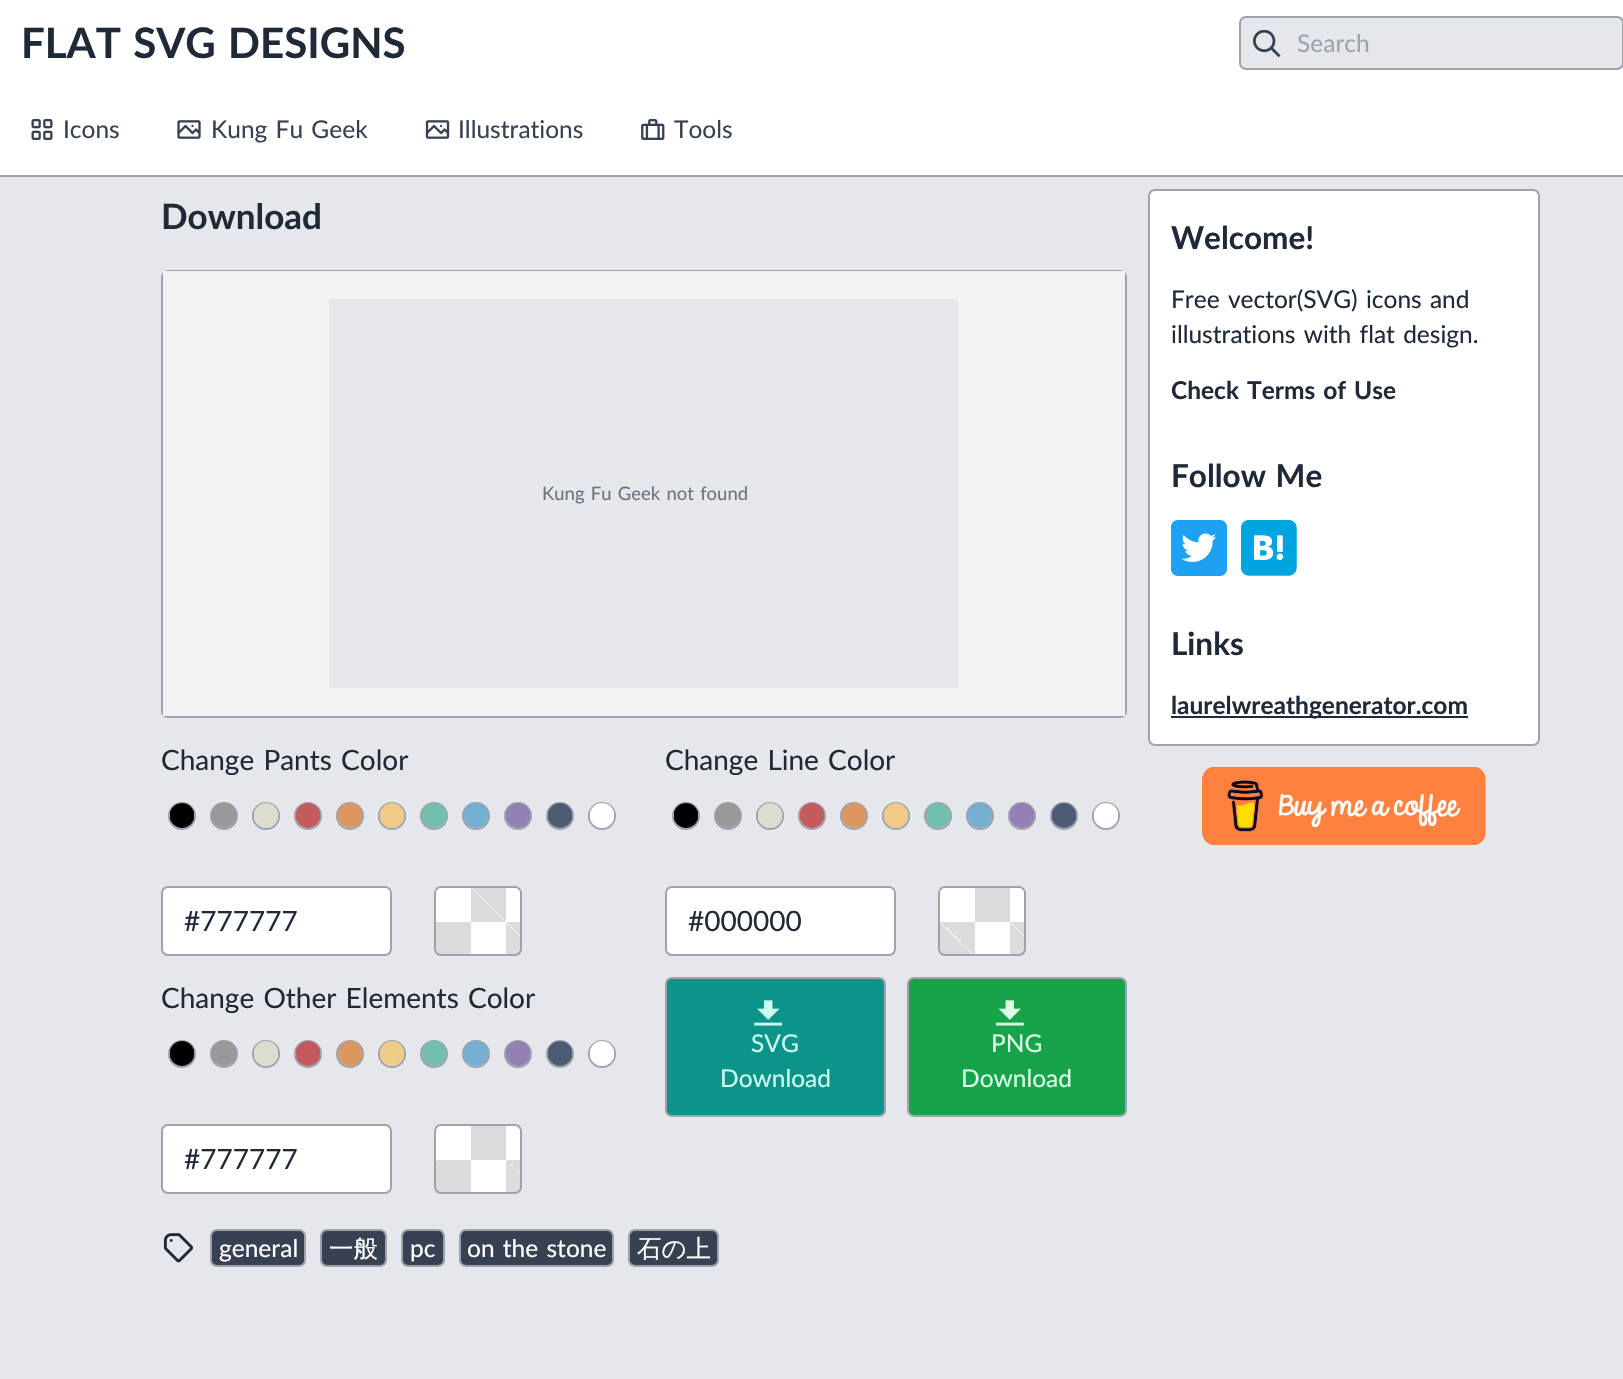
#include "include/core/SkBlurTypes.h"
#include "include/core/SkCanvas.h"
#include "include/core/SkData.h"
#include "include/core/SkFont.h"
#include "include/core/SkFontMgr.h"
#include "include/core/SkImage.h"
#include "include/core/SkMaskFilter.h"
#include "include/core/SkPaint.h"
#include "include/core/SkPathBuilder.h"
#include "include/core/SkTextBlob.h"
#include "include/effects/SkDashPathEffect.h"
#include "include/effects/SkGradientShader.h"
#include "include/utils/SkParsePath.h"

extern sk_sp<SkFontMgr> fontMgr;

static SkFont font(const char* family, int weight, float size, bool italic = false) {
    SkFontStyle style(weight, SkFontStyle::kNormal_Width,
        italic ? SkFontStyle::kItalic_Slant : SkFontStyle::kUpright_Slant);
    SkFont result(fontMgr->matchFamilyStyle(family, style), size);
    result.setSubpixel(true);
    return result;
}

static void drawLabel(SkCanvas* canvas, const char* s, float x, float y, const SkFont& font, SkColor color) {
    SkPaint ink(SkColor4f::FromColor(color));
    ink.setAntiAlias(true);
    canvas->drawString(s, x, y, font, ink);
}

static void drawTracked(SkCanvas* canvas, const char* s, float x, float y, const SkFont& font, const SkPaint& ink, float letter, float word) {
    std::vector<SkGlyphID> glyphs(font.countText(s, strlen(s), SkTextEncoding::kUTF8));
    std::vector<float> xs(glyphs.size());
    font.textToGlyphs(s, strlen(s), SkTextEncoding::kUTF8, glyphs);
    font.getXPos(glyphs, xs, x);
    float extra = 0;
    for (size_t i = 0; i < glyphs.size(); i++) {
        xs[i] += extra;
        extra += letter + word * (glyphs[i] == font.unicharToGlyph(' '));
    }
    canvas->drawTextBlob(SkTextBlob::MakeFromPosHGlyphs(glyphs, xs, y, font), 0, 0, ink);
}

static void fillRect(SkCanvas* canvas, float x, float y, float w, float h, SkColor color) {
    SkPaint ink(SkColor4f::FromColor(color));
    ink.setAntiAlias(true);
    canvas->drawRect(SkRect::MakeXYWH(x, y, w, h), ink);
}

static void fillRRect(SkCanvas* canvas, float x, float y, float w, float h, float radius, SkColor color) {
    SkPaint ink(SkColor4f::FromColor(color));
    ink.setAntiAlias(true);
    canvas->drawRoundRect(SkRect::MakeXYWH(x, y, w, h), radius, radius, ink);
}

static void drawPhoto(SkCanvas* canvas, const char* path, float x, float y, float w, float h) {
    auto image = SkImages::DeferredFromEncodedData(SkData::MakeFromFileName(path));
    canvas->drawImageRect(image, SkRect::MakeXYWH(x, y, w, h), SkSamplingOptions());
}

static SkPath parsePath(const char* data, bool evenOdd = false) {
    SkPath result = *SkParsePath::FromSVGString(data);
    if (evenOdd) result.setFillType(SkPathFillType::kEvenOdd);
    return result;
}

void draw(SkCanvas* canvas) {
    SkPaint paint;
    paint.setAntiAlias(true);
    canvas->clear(0xFFE5E7EB);
    fillRect(canvas, 0, 0, 1623, 175, 0xFFFFFFFF);
    fillRect(canvas, 0, 175, 1623, 2, 0xFF9CA3AF);
    SkFont font1 = font("Lato", 700, 42);
    paint.setColor(0xFF1F2937);
    drawTracked(canvas, "FLAT SVG DESIGNS", 21, 58, font1, paint, 0, 2);
    paint.setColor(0xFFE5E7EB);
    canvas->drawRoundRect(SkRect::MakeXYWH(1240, 17, 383, 52), 6, 6, paint);
    paint.setStroke(true);
    paint.setStrokeWidth(2);
    paint.setColor(0xFF9CA3AF);
    canvas->drawRoundRect(SkRect::MakeXYWH(1240, 17, 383, 52), 6, 6, paint);
    drawPhoto(canvas, "assets/img1.png", 1253, 30, 28, 28);
    SkFont font2 = font("Lato", 400, 24.5f);
    drawLabel(canvas, "Search", 1297, 52, font2, 0xFF9CA3AF);
    drawPhoto(canvas, "assets/img2.png", 31, 119, 22, 21);
    drawLabel(canvas, "Icons", 63, 138, font2, 0xFF374151);
    drawPhoto(canvas, "assets/img3.png", 177, 120, 24, 19);
    paint.setStroke(false);
    paint.setColor(0xFF374151);
    drawTracked(canvas, "Kung Fu Geek", 211, 138, font2, paint, 0, 2);
    drawPhoto(canvas, "assets/img4.png", 425, 120, 25, 19);
    drawLabel(canvas, "Illustrations", 458, 138, font2, 0xFF374151);
    drawPhoto(canvas, "assets/img5.png", 641, 119, 24, 21);
    drawLabel(canvas, "Tools", 674, 138, font2, 0xFF374151);
    SkFont font3 = font("Lato", 700, 35);
    drawLabel(canvas, "Download", 161, 229, font3, 0xFF1F2937);
    paint.setStroke(true);
    paint.setColor(0xFF9CA3AF);
    canvas->drawRoundRect(SkRect::MakeXYWH(162, 271, 964, 446), 6, 6, paint);
    fillRect(canvas, 163, 271, 962, 445, 0xFFF2F2F2);
    fillRect(canvas, 329, 299, 629, 389, 0xFFE5E7EB);
    SkFont font4 = font("Lato", 400, 18.5f);
    paint.setStroke(false);
    paint.setColor(0xFF6B7280);
    drawTracked(canvas, "Kung Fu Geek not found", 542, 500, font4, paint, 0, 1.5f);
    SkFont font5 = font("Lato", 400, 28);
    paint.setColor(0xFF1F2937);
    drawTracked(canvas, "Change Pants Color", 161, 770, font5, paint, 0, 2);
    paint.setStroke(true);
    paint.setColor(0xFF9CA3AF);
    canvas->drawCircle(182, 816, 13, paint);
    canvas->save();
    canvas->clipRect(SkRect::MakeXYWH(170, 803, 24, 25));
    paint.setStroke(false);
    paint.setColor(0xFF000000);
    canvas->drawCircle(182, 815.5f, 12.5f, paint);
    canvas->restore();
    paint.setStroke(true);
    paint.setColor(0xFF9CA3AF);
    canvas->drawCircle(224, 816, 13, paint);
    canvas->save();
    canvas->clipRect(SkRect::MakeXYWH(212, 803, 24, 25));
    paint.setStroke(false);
    paint.setColor(0xFF999999);
    canvas->drawCircle(224, 815.5f, 12.5f, paint);
    canvas->restore();
    paint.setStroke(true);
    paint.setColor(0xFF9CA3AF);
    canvas->drawCircle(266, 816, 13, paint);
    canvas->save();
    canvas->clipRect(SkRect::MakeXYWH(254, 803, 24, 25));
    paint.setStroke(false);
    paint.setColor(0xFFDCDCCF);
    canvas->drawCircle(266, 815.5f, 12.5f, paint);
    canvas->restore();
    paint.setStroke(true);
    paint.setColor(0xFF9CA3AF);
    canvas->drawCircle(308, 816, 13, paint);
    canvas->save();
    canvas->clipRect(SkRect::MakeXYWH(296, 803, 24, 25));
    paint.setStroke(false);
    paint.setColor(0xFFC35B5D);
    canvas->drawCircle(308, 815.5f, 12.5f, paint);
    canvas->restore();
    paint.setStroke(true);
    paint.setColor(0xFF9CA3AF);
    canvas->drawCircle(350, 816, 13, paint);
    canvas->save();
    canvas->clipRect(SkRect::MakeXYWH(338, 803, 24, 25));
    paint.setStroke(false);
    paint.setColor(0xFFDC965F);
    canvas->drawCircle(350, 815.5f, 12.5f, paint);
    canvas->restore();
    paint.setStroke(true);
    paint.setColor(0xFF9CA3AF);
    canvas->drawCircle(392, 816, 13, paint);
    canvas->save();
    canvas->clipRect(SkRect::MakeXYWH(380, 803, 24, 25));
    paint.setStroke(false);
    paint.setColor(0xFFF0CB87);
    canvas->drawCircle(392, 815.5f, 12.5f, paint);
    canvas->restore();
    paint.setStroke(true);
    paint.setColor(0xFF9CA3AF);
    canvas->drawCircle(434, 816, 13, paint);
    canvas->save();
    canvas->clipRect(SkRect::MakeXYWH(422, 803, 24, 25));
    paint.setStroke(false);
    paint.setColor(0xFF74BEAE);
    canvas->drawCircle(434, 815.5f, 12.5f, paint);
    canvas->restore();
    paint.setStroke(true);
    paint.setColor(0xFF9CA3AF);
    canvas->drawCircle(476, 816, 13, paint);
    canvas->save();
    canvas->clipRect(SkRect::MakeXYWH(464, 803, 24, 25));
    paint.setStroke(false);
    paint.setColor(0xFF75B0D2);
    canvas->drawCircle(476, 815.5f, 12.5f, paint);
    canvas->restore();
    paint.setStroke(true);
    paint.setColor(0xFF9CA3AF);
    canvas->drawCircle(518, 816, 13, paint);
    canvas->save();
    canvas->clipRect(SkRect::MakeXYWH(506, 803, 24, 25));
    paint.setStroke(false);
    paint.setColor(0xFF9380B5);
    canvas->drawCircle(518, 815.5f, 12.5f, paint);
    canvas->restore();
    paint.setStroke(true);
    paint.setColor(0xFF9CA3AF);
    canvas->drawCircle(560, 816, 13, paint);
    canvas->save();
    canvas->clipRect(SkRect::MakeXYWH(548, 803, 24, 25));
    paint.setStroke(false);
    paint.setColor(0xFF4E5C73);
    canvas->drawCircle(560, 815.5f, 12.5f, paint);
    canvas->restore();
    paint.setStroke(true);
    paint.setColor(0xFF9CA3AF);
    canvas->drawCircle(602, 816, 13, paint);
    canvas->save();
    canvas->clipRect(SkRect::MakeXYWH(590, 803, 24, 25));
    paint.setStroke(false);
    paint.setColor(0xFFFFFFFF);
    canvas->drawCircle(602, 815.5f, 12.5f, paint);
    canvas->restore();
    canvas->drawRoundRect(SkRect::MakeXYWH(162, 887, 229, 68), 6, 6, paint);
    paint.setStroke(true);
    paint.setColor(0xFF9CA3AF);
    canvas->drawRoundRect(SkRect::MakeXYWH(162, 887, 229, 68), 6, 6, paint);
    drawLabel(canvas, "#777777", 184, 931, font5, 0xFF1F2937);
    fillRRect(canvas, 434, 886, 88, 70, 7, 0xFFFFFFFF);
    paint.setStroke(false);
    {
        const SkColor colors[] = {0xFFDCDCDC, 0x00DCDCDC, 0x00DCDCDC, 0xFFDCDCDC};
        const float stops[] = {0.25f, 0.25f, 0.75f, 0.75f};
        const SkPoint ends[] = {{471, 922}, {541, 852}};
        paint.setShader(SkGradientShader::MakeLinear(ends, colors, stops, 4, SkTileMode::kClamp));
        paint.setAlpha(255);
    }
    canvas->drawRect(SkRect::MakeXYWH(471, 888, 34, 34), paint);
    {
        const SkColor colors[] = {0xFFDCDCDC, 0x00DCDCDC, 0x00DCDCDC, 0xFFDCDCDC};
        const float stops[] = {0.25f, 0.25f, 0.75f, 0.75f};
        const SkPoint ends[] = {{401, 992}, {471, 922}};
        paint.setShader(SkGradientShader::MakeLinear(ends, colors, stops, 4, SkTileMode::kClamp));
        paint.setAlpha(255);
    }
    canvas->drawRect(SkRect::MakeXYWH(437, 922, 34, 32), paint);
    {
        const SkColor colors[] = {0xFFDCDCDC, 0x00DCDCDC, 0x00DCDCDC, 0xFFDCDCDC};
        const float stops[] = {0.25f, 0.25f, 0.75f, 0.75f};
        const SkPoint ends[] = {{471, 992}, {541, 922}};
        paint.setShader(SkGradientShader::MakeLinear(ends, colors, stops, 4, SkTileMode::kClamp));
        paint.setAlpha(255);
    }
    canvas->drawRect(SkRect::MakeXYWH(507, 922, 13, 13), paint);
    canvas->save();
    canvas->clipPath(parsePath("M441 886H515C519 886 522 889 522 893V949C522 953 519 956 515 956H441C437 956 434 953 434 949V893C434 889 437 886 441 886Z"), true);
    {
        const SkColor colors[] = {0xFFDCDCDC, 0x00DCDCDC, 0x00DCDCDC, 0xFFDCDCDC};
        const float stops[] = {0.25f, 0.25f, 0.75f, 0.75f};
        const SkPoint ends[] = {{436, 957}, {506, 887}};
        paint.setShader(SkGradientShader::MakeLinear(ends, colors, stops, 4, SkTileMode::kClamp));
        paint.setAlpha(255);
    }
    canvas->drawRect(SkRect::MakeXYWH(436, 888, 70, 68), paint);
    {
        const SkColor colors[] = {0xFFDCDCDC, 0x00DCDCDC, 0x00DCDCDC, 0xFFDCDCDC};
        const float stops[] = {0.25f, 0.25f, 0.75f, 0.75f};
        const SkPoint ends[] = {{506, 957}, {576, 887}};
        paint.setShader(SkGradientShader::MakeLinear(ends, colors, stops, 4, SkTileMode::kClamp));
        paint.setAlpha(255);
    }
    canvas->drawPath(parsePath("M506 887H522V949C522 953 519 956 515 956H506Z"), paint);
    canvas->restore();
    paint.setStroke(true);
    paint.setShader(nullptr);
    paint.setColor(0xFF9CA3AF);
    canvas->drawRoundRect(SkRect::MakeXYWH(435, 887, 86, 68), 6, 6, paint);
    paint.setStroke(false);
    paint.setColor(0xFF1F2937);
    drawTracked(canvas, "Change Other Elements Color", 161, 1008, font5, paint, 0, 2);
    paint.setStroke(true);
    paint.setColor(0xFF9CA3AF);
    canvas->drawCircle(182, 1054, 13, paint);
    canvas->save();
    canvas->clipRect(SkRect::MakeXYWH(170, 1041, 24, 25));
    paint.setStroke(false);
    paint.setColor(0xFF000000);
    canvas->drawCircle(182, 1053.5f, 12.5f, paint);
    canvas->restore();
    paint.setStroke(true);
    paint.setColor(0xFF9CA3AF);
    canvas->drawCircle(224, 1054, 13, paint);
    canvas->save();
    canvas->clipRect(SkRect::MakeXYWH(212, 1041, 24, 25));
    paint.setStroke(false);
    paint.setColor(0xFF999999);
    canvas->drawCircle(224, 1053.5f, 12.5f, paint);
    canvas->restore();
    paint.setStroke(true);
    paint.setColor(0xFF9CA3AF);
    canvas->drawCircle(266, 1054, 13, paint);
    canvas->save();
    canvas->clipRect(SkRect::MakeXYWH(254, 1041, 24, 25));
    paint.setStroke(false);
    paint.setColor(0xFFDCDCCF);
    canvas->drawCircle(266, 1053.5f, 12.5f, paint);
    canvas->restore();
    paint.setStroke(true);
    paint.setColor(0xFF9CA3AF);
    canvas->drawCircle(308, 1054, 13, paint);
    canvas->save();
    canvas->clipRect(SkRect::MakeXYWH(296, 1041, 24, 25));
    paint.setStroke(false);
    paint.setColor(0xFFC35B5D);
    canvas->drawCircle(308, 1053.5f, 12.5f, paint);
    canvas->restore();
    paint.setStroke(true);
    paint.setColor(0xFF9CA3AF);
    canvas->drawCircle(350, 1054, 13, paint);
    canvas->save();
    canvas->clipRect(SkRect::MakeXYWH(338, 1041, 24, 25));
    paint.setStroke(false);
    paint.setColor(0xFFDC965F);
    canvas->drawCircle(350, 1053.5f, 12.5f, paint);
    canvas->restore();
    paint.setStroke(true);
    paint.setColor(0xFF9CA3AF);
    canvas->drawCircle(392, 1054, 13, paint);
    canvas->save();
    canvas->clipRect(SkRect::MakeXYWH(380, 1041, 24, 25));
    paint.setStroke(false);
    paint.setColor(0xFFF0CB87);
    canvas->drawCircle(392, 1053.5f, 12.5f, paint);
    canvas->restore();
    paint.setStroke(true);
    paint.setColor(0xFF9CA3AF);
    canvas->drawCircle(434, 1054, 13, paint);
    canvas->save();
    canvas->clipRect(SkRect::MakeXYWH(422, 1041, 24, 25));
    paint.setStroke(false);
    paint.setColor(0xFF74BEAE);
    canvas->drawCircle(434, 1053.5f, 12.5f, paint);
    canvas->restore();
    paint.setStroke(true);
    paint.setColor(0xFF9CA3AF);
    canvas->drawCircle(476, 1054, 13, paint);
    canvas->save();
    canvas->clipRect(SkRect::MakeXYWH(464, 1041, 24, 25));
    paint.setStroke(false);
    paint.setColor(0xFF75B0D2);
    canvas->drawCircle(476, 1053.5f, 12.5f, paint);
    canvas->restore();
    paint.setStroke(true);
    paint.setColor(0xFF9CA3AF);
    canvas->drawCircle(518, 1054, 13, paint);
    canvas->save();
    canvas->clipRect(SkRect::MakeXYWH(506, 1041, 24, 25));
    paint.setStroke(false);
    paint.setColor(0xFF9380B5);
    canvas->drawCircle(518, 1053.5f, 12.5f, paint);
    canvas->restore();
    paint.setStroke(true);
    paint.setColor(0xFF9CA3AF);
    canvas->drawCircle(560, 1054, 13, paint);
    canvas->save();
    canvas->clipRect(SkRect::MakeXYWH(548, 1041, 24, 25));
    paint.setStroke(false);
    paint.setColor(0xFF4E5C73);
    canvas->drawCircle(560, 1053.5f, 12.5f, paint);
    canvas->restore();
    paint.setStroke(true);
    paint.setColor(0xFF9CA3AF);
    canvas->drawCircle(602, 1054, 13, paint);
    canvas->save();
    canvas->clipRect(SkRect::MakeXYWH(590, 1041, 24, 25));
    paint.setStroke(false);
    paint.setColor(0xFFFFFFFF);
    canvas->drawCircle(602, 1053.5f, 12.5f, paint);
    canvas->restore();
    canvas->drawRoundRect(SkRect::MakeXYWH(162, 1125, 229, 68), 6, 6, paint);
    paint.setStroke(true);
    paint.setColor(0xFF9CA3AF);
    canvas->drawRoundRect(SkRect::MakeXYWH(162, 1125, 229, 68), 6, 6, paint);
    drawLabel(canvas, "#777777", 184, 1169, font5, 0xFF1F2937);
    fillRRect(canvas, 434, 1124, 88, 70, 7, 0xFFFFFFFF);
    paint.setStroke(false);
    {
        const SkColor colors[] = {0xFFDCDCDC, 0x00DCDCDC, 0x00DCDCDC, 0xFFDCDCDC};
        const float stops[] = {0.25f, 0.25f, 0.75f, 0.75f};
        const SkPoint ends[] = {{471, 1160}, {541, 1090}};
        paint.setShader(SkGradientShader::MakeLinear(ends, colors, stops, 4, SkTileMode::kClamp));
        paint.setAlpha(255);
    }
    canvas->drawRect(SkRect::MakeXYWH(471, 1126, 34, 34), paint);
    {
        const SkColor colors[] = {0xFFDCDCDC, 0x00DCDCDC, 0x00DCDCDC, 0xFFDCDCDC};
        const float stops[] = {0.25f, 0.25f, 0.75f, 0.75f};
        const SkPoint ends[] = {{401, 1230}, {471, 1160}};
        paint.setShader(SkGradientShader::MakeLinear(ends, colors, stops, 4, SkTileMode::kClamp));
        paint.setAlpha(255);
    }
    canvas->drawRect(SkRect::MakeXYWH(437, 1160, 34, 32), paint);
    {
        const SkColor colors[] = {0xFFDCDCDC, 0x00DCDCDC, 0x00DCDCDC, 0xFFDCDCDC};
        const float stops[] = {0.25f, 0.25f, 0.75f, 0.75f};
        const SkPoint ends[] = {{471, 1230}, {541, 1160}};
        paint.setShader(SkGradientShader::MakeLinear(ends, colors, stops, 4, SkTileMode::kClamp));
        paint.setAlpha(255);
    }
    canvas->drawRect(SkRect::MakeXYWH(507, 1160, 13, 13), paint);
    canvas->save();
    canvas->clipPath(parsePath("M441 1124H515C519 1124 522 1127 522 1131V1187C522 1191 519 1194 515 1194H441C437 1194 434 1191 434 1187V1131C434 1127 437 1124 441 1124Z"), true);
    {
        const SkColor colors[] = {0xFFDCDCDC, 0x00DCDCDC, 0x00DCDCDC, 0xFFDCDCDC};
        const float stops[] = {0.25f, 0.25f, 0.75f, 0.75f};
        const SkPoint ends[] = {{436, 1195}, {506, 1125}};
        paint.setShader(SkGradientShader::MakeLinear(ends, colors, stops, 4, SkTileMode::kClamp));
        paint.setAlpha(255);
    }
    canvas->drawRect(SkRect::MakeXYWH(436, 1126, 70, 68), paint);
    {
        const SkColor colors[] = {0xFFDCDCDC, 0x00DCDCDC, 0x00DCDCDC, 0xFFDCDCDC};
        const float stops[] = {0.25f, 0.25f, 0.75f, 0.75f};
        const SkPoint ends[] = {{506, 1195}, {576, 1125}};
        paint.setShader(SkGradientShader::MakeLinear(ends, colors, stops, 4, SkTileMode::kClamp));
        paint.setAlpha(255);
    }
    canvas->drawPath(parsePath("M506 1125H522V1187C522 1191 519 1194 515 1194H506Z"), paint);
    canvas->restore();
    paint.setStroke(true);
    paint.setShader(nullptr);
    paint.setColor(0xFF9CA3AF);
    canvas->drawRoundRect(SkRect::MakeXYWH(435, 1125, 86, 68), 6, 6, paint);
    paint.setStroke(false);
    paint.setColor(0xFF1F2937);
    drawTracked(canvas, "Change Line Color", 665, 770, font5, paint, 0, 2);
    paint.setStroke(true);
    paint.setColor(0xFF9CA3AF);
    canvas->drawCircle(686, 816, 13, paint);
    canvas->save();
    canvas->clipRect(SkRect::MakeXYWH(674, 803, 24, 25));
    paint.setStroke(false);
    paint.setColor(0xFF000000);
    canvas->drawCircle(686, 815.5f, 12.5f, paint);
    canvas->restore();
    paint.setStroke(true);
    paint.setColor(0xFF9CA3AF);
    canvas->drawCircle(728, 816, 13, paint);
    canvas->save();
    canvas->clipRect(SkRect::MakeXYWH(716, 803, 24, 25));
    paint.setStroke(false);
    paint.setColor(0xFF999999);
    canvas->drawCircle(728, 815.5f, 12.5f, paint);
    canvas->restore();
    paint.setStroke(true);
    paint.setColor(0xFF9CA3AF);
    canvas->drawCircle(770, 816, 13, paint);
    canvas->save();
    canvas->clipRect(SkRect::MakeXYWH(758, 803, 24, 25));
    paint.setStroke(false);
    paint.setColor(0xFFDCDCCF);
    canvas->drawCircle(770, 815.5f, 12.5f, paint);
    canvas->restore();
    paint.setStroke(true);
    paint.setColor(0xFF9CA3AF);
    canvas->drawCircle(812, 816, 13, paint);
    canvas->save();
    canvas->clipRect(SkRect::MakeXYWH(800, 803, 24, 25));
    paint.setStroke(false);
    paint.setColor(0xFFC35B5D);
    canvas->drawCircle(812, 815.5f, 12.5f, paint);
    canvas->restore();
    paint.setStroke(true);
    paint.setColor(0xFF9CA3AF);
    canvas->drawCircle(854, 816, 13, paint);
    canvas->save();
    canvas->clipRect(SkRect::MakeXYWH(842, 803, 24, 25));
    paint.setStroke(false);
    paint.setColor(0xFFDC965F);
    canvas->drawCircle(854, 815.5f, 12.5f, paint);
    canvas->restore();
    paint.setStroke(true);
    paint.setColor(0xFF9CA3AF);
    canvas->drawCircle(896, 816, 13, paint);
    canvas->save();
    canvas->clipRect(SkRect::MakeXYWH(884, 803, 24, 25));
    paint.setStroke(false);
    paint.setColor(0xFFF0CB87);
    canvas->drawCircle(896, 815.5f, 12.5f, paint);
    canvas->restore();
    paint.setStroke(true);
    paint.setColor(0xFF9CA3AF);
    canvas->drawCircle(938, 816, 13, paint);
    canvas->save();
    canvas->clipRect(SkRect::MakeXYWH(926, 803, 24, 25));
    paint.setStroke(false);
    paint.setColor(0xFF74BEAE);
    canvas->drawCircle(938, 815.5f, 12.5f, paint);
    canvas->restore();
    paint.setStroke(true);
    paint.setColor(0xFF9CA3AF);
    canvas->drawCircle(980, 816, 13, paint);
    canvas->save();
    canvas->clipRect(SkRect::MakeXYWH(968, 803, 24, 25));
    paint.setStroke(false);
    paint.setColor(0xFF75B0D2);
    canvas->drawCircle(980, 815.5f, 12.5f, paint);
    canvas->restore();
    paint.setStroke(true);
    paint.setColor(0xFF9CA3AF);
    canvas->drawCircle(1022, 816, 13, paint);
    canvas->save();
    canvas->clipRect(SkRect::MakeXYWH(1010, 803, 24, 25));
    paint.setStroke(false);
    paint.setColor(0xFF9380B5);
    canvas->drawCircle(1022, 815.5f, 12.5f, paint);
    canvas->restore();
    paint.setStroke(true);
    paint.setColor(0xFF9CA3AF);
    canvas->drawCircle(1064, 816, 13, paint);
    canvas->save();
    canvas->clipRect(SkRect::MakeXYWH(1052, 803, 24, 25));
    paint.setStroke(false);
    paint.setColor(0xFF4E5C73);
    canvas->drawCircle(1064, 815.5f, 12.5f, paint);
    canvas->restore();
    paint.setStroke(true);
    paint.setColor(0xFF9CA3AF);
    canvas->drawCircle(1106, 816, 13, paint);
    canvas->save();
    canvas->clipRect(SkRect::MakeXYWH(1094, 803, 24, 25));
    paint.setStroke(false);
    paint.setColor(0xFFFFFFFF);
    canvas->drawCircle(1106, 815.5f, 12.5f, paint);
    canvas->restore();
    canvas->drawRoundRect(SkRect::MakeXYWH(666, 887, 229, 68), 6, 6, paint);
    paint.setStroke(true);
    paint.setColor(0xFF9CA3AF);
    canvas->drawRoundRect(SkRect::MakeXYWH(666, 887, 229, 68), 6, 6, paint);
    drawLabel(canvas, "#000000", 688, 931, font5, 0xFF1F2937);
    fillRRect(canvas, 938, 886, 88, 70, 7, 0xFFFFFFFF);
    paint.setStroke(false);
    {
        const SkColor colors[] = {0xFFDCDCDC, 0x00DCDCDC, 0x00DCDCDC, 0xFFDCDCDC};
        const float stops[] = {0.25f, 0.25f, 0.75f, 0.75f};
        const SkPoint ends[] = {{975, 922}, {1045, 852}};
        paint.setShader(SkGradientShader::MakeLinear(ends, colors, stops, 4, SkTileMode::kClamp));
        paint.setAlpha(255);
    }
    canvas->drawRect(SkRect::MakeXYWH(975, 888, 34, 34), paint);
    {
        const SkColor colors[] = {0xFFDCDCDC, 0x00DCDCDC, 0x00DCDCDC, 0xFFDCDCDC};
        const float stops[] = {0.25f, 0.25f, 0.75f, 0.75f};
        const SkPoint ends[] = {{905, 992}, {975, 922}};
        paint.setShader(SkGradientShader::MakeLinear(ends, colors, stops, 4, SkTileMode::kClamp));
        paint.setAlpha(255);
    }
    canvas->drawRect(SkRect::MakeXYWH(941, 922, 34, 32), paint);
    {
        const SkColor colors[] = {0xFFDCDCDC, 0x00DCDCDC, 0x00DCDCDC, 0xFFDCDCDC};
        const float stops[] = {0.25f, 0.25f, 0.75f, 0.75f};
        const SkPoint ends[] = {{975, 992}, {1045, 922}};
        paint.setShader(SkGradientShader::MakeLinear(ends, colors, stops, 4, SkTileMode::kClamp));
        paint.setAlpha(255);
    }
    canvas->drawRect(SkRect::MakeXYWH(1011, 922, 13, 13), paint);
    canvas->save();
    canvas->clipPath(parsePath("M945 886H1019C1023 886 1026 889 1026 893V949C1026 953 1023 956 1019 956H945C941 956 938 953 938 949V893C938 889 941 886 945 886Z"), true);
    {
        const SkColor colors[] = {0xFFDCDCDC, 0x00DCDCDC, 0x00DCDCDC, 0xFFDCDCDC};
        const float stops[] = {0.25f, 0.25f, 0.75f, 0.75f};
        const SkPoint ends[] = {{940, 957}, {1010, 887}};
        paint.setShader(SkGradientShader::MakeLinear(ends, colors, stops, 4, SkTileMode::kClamp));
        paint.setAlpha(255);
    }
    canvas->drawRect(SkRect::MakeXYWH(940, 888, 70, 68), paint);
    {
        const SkColor colors[] = {0xFFDCDCDC, 0x00DCDCDC, 0x00DCDCDC, 0xFFDCDCDC};
        const float stops[] = {0.25f, 0.25f, 0.75f, 0.75f};
        const SkPoint ends[] = {{1010, 957}, {1080, 887}};
        paint.setShader(SkGradientShader::MakeLinear(ends, colors, stops, 4, SkTileMode::kClamp));
        paint.setAlpha(255);
    }
    canvas->drawPath(parsePath("M1010 887H1026V949C1026 953 1023 956 1019 956H1010Z"), paint);
    canvas->restore();
    paint.setStroke(true);
    paint.setShader(nullptr);
    paint.setColor(0xFF9CA3AF);
    canvas->drawRoundRect(SkRect::MakeXYWH(939, 887, 86, 68), 6, 6, paint);
    paint.setStroke(false);
    paint.setColor(0xFF0D9488);
    canvas->drawRoundRect(SkRect::MakeXYWH(666, 978, 219, 138), 6, 6, paint);
    paint.setStroke(true);
    paint.setColor(0xFF9CA3AF);
    canvas->drawRoundRect(SkRect::MakeXYWH(666, 978, 219, 138), 6, 6, paint);
    drawPhoto(canvas, "assets/img6.png", 754, 1000, 28, 26);
    drawLabel(canvas, "SVG", 751, 1052, font2, 0xFFCCFBF1);
    drawLabel(canvas, "Download", 720, 1087, font2, 0xFFCCFBF1);
    paint.setStroke(false);
    paint.setColor(0xFF16A34A);
    canvas->drawRoundRect(SkRect::MakeXYWH(908, 978, 218, 138), 6, 6, paint);
    paint.setStroke(true);
    paint.setColor(0xFF9CA3AF);
    canvas->drawRoundRect(SkRect::MakeXYWH(908, 978, 218, 138), 6, 6, paint);
    drawPhoto(canvas, "assets/img7.png", 996, 1000, 28, 26);
    drawLabel(canvas, "PNG", 991, 1052, font2, 0xFFDCFCE7);
    drawLabel(canvas, "Download", 961, 1087, font2, 0xFFDCFCE7);
    drawPhoto(canvas, "assets/img8.png", 163, 1233, 31, 30);
    paint.setStroke(false);
    paint.setColor(0xFF374151);
    canvas->drawRoundRect(SkRect::MakeXYWH(211, 1230, 94, 36), 6, 6, paint);
    paint.setStroke(true);
    paint.setColor(0xFF9CA3AF);
    canvas->drawRoundRect(SkRect::MakeXYWH(211, 1230, 94, 36), 6, 6, paint);
    drawLabel(canvas, "general", 219, 1257, font2, 0xFFFFFFFF);
    paint.setStroke(false);
    paint.setColor(0xFF374151);
    canvas->drawRoundRect(SkRect::MakeXYWH(321, 1230, 65, 36), 6, 6, paint);
    paint.setStroke(true);
    paint.setColor(0xFF9CA3AF);
    canvas->drawRoundRect(SkRect::MakeXYWH(321, 1230, 65, 36), 6, 6, paint);
    SkFont font6 = font("WenQuanYi Zen Hei", 500, 24.5f);
    drawLabel(canvas, "一般", 329, 1257, font6, 0xFFFFFFFF);
    paint.setStroke(false);
    paint.setColor(0xFF374151);
    canvas->drawRoundRect(SkRect::MakeXYWH(402, 1230, 42, 36), 6, 6, paint);
    paint.setStroke(true);
    paint.setColor(0xFF9CA3AF);
    canvas->drawRoundRect(SkRect::MakeXYWH(402, 1230, 42, 36), 6, 6, paint);
    drawLabel(canvas, "pc", 410, 1257, font2, 0xFFFFFFFF);
    paint.setStroke(false);
    paint.setColor(0xFF374151);
    canvas->drawRoundRect(SkRect::MakeXYWH(460, 1230, 153, 36), 6, 6, paint);
    paint.setStroke(true);
    paint.setColor(0xFF9CA3AF);
    canvas->drawRoundRect(SkRect::MakeXYWH(460, 1230, 153, 36), 6, 6, paint);
    paint.setStroke(false);
    paint.setColor(0xFFFFFFFF);
    drawTracked(canvas, "on the stone", 467, 1257, font2, paint, 0, 2);
    paint.setColor(0xFF374151);
    canvas->drawRoundRect(SkRect::MakeXYWH(629, 1230, 89, 36), 6, 6, paint);
    paint.setStroke(true);
    paint.setColor(0xFF9CA3AF);
    canvas->drawRoundRect(SkRect::MakeXYWH(629, 1230, 89, 36), 6, 6, paint);
    drawLabel(canvas, "石の上", 637, 1257, font6, 0xFFFFFFFF);
    paint.setStroke(false);
    paint.setColor(0xFFFFFFFF);
    canvas->drawRoundRect(SkRect::MakeXYWH(1149, 190, 390, 555), 6, 6, paint);
    paint.setStroke(true);
    paint.setColor(0xFF9CA3AF);
    canvas->drawRoundRect(SkRect::MakeXYWH(1149, 190, 390, 555), 6, 6, paint);
    SkFont font7 = font("Lato", 700, 31.5f);
    drawLabel(canvas, "Welcome!", 1171, 249, font7, 0xFF1F2937);
    paint.setStroke(false);
    paint.setColor(0xFF1F2937);
    drawTracked(canvas, "Free vector(SVG) icons and", 1171, 308, font2, paint, 0, 2);
    drawTracked(canvas, "illustrations with flat design.", 1171, 343, font2, paint, 0, 2);
    SkFont font8 = font("Lato", 700, 24.5f);
    drawTracked(canvas, "Check Terms of Use", 1171, 399, font8, paint, 0, 2);
    drawTracked(canvas, "Follow Me", 1171, 487, font7, paint, 0, 2);
    drawPhoto(canvas, "assets/img9.png", 1171, 520, 56, 56);
    drawPhoto(canvas, "assets/img10.png", 1241, 520, 56, 56);
    drawLabel(canvas, "Links", 1171, 655, font7, 0xFF1F2937);
    fillRect(canvas, 1171, 716, 297, 2, 0xFF1F2937);
    drawLabel(canvas, "laurelwreathgenerator.com", 1171, 714, font8, 0xFF1F2937);
    drawPhoto(canvas, "assets/img11.png", 1202, 767, 284, 78);
}
